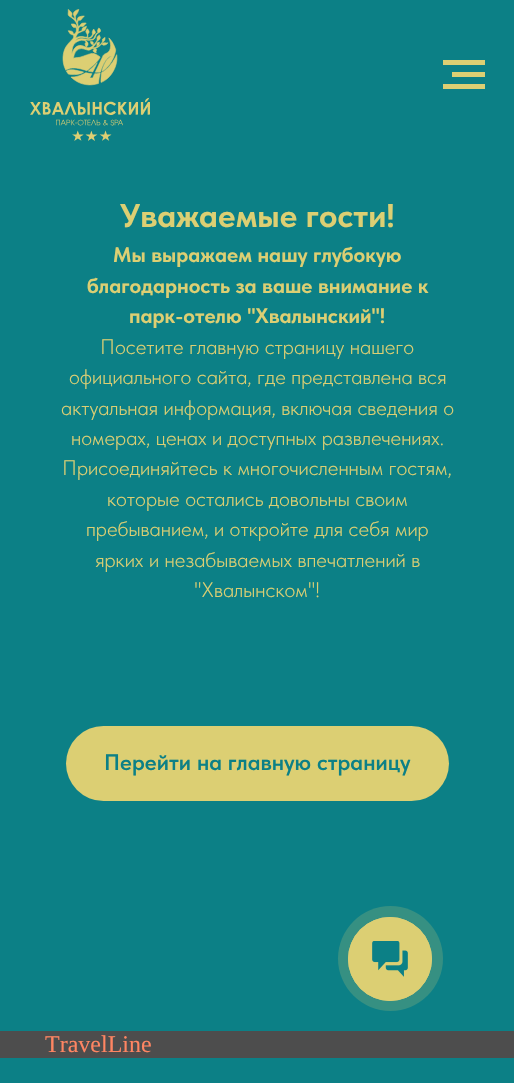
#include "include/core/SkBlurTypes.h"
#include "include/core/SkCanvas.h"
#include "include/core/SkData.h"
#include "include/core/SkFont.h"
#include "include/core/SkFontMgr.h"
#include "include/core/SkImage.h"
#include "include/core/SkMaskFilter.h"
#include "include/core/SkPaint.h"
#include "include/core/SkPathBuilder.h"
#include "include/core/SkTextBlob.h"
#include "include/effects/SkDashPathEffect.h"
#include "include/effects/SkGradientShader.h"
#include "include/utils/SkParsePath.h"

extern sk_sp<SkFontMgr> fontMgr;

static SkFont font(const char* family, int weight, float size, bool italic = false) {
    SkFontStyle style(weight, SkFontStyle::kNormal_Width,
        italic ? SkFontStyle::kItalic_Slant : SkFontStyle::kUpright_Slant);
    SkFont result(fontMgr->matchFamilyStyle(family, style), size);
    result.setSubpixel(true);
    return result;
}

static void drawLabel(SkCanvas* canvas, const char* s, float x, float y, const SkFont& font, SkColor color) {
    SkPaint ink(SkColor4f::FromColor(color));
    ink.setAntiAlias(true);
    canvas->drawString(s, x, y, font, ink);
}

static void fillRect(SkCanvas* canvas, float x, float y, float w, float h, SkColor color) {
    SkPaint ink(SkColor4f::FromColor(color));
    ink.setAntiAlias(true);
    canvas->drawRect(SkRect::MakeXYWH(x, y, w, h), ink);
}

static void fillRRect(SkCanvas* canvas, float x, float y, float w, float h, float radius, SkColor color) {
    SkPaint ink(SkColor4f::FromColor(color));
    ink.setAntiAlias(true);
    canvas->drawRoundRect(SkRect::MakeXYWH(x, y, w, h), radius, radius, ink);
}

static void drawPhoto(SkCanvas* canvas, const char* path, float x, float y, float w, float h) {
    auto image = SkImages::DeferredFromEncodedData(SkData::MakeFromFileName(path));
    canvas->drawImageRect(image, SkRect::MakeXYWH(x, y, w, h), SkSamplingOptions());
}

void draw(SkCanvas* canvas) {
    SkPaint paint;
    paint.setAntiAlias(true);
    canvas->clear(0xFF0C8086);
    drawPhoto(canvas, "assets/img1.png", 30, 9, 120, 132);
    fillRect(canvas, 443, 60, 42, 5, 0xFFDCCF73);
    fillRect(canvas, 452, 72, 33, 5, 0xFFDCCF73);
    fillRect(canvas, 443, 84, 42, 5, 0xFFDCCF73);
    SkFont font1 = font("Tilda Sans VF", 700, 33);
    drawLabel(canvas, "Уважаемые гости!", 120, 227, font1, 0xFFDCCF73);
    SkFont font2 = font("Tilda Sans VF", 700, 21);
    drawLabel(canvas, "Мы выражаем нашу глубокую", 113, 262, font2, 0xFFDCCF73);
    drawLabel(canvas, "благодарность за ваше внимание к", 87, 293, font2, 0xFFDCCF73);
    drawLabel(canvas, "парк-отелю \"Хвалынский\"!", 129, 323, font2, 0xFFDCCF73);
    SkFont font3 = font("Tilda Sans VF", 300, 21);
    drawLabel(canvas, "Посетите главную страницу нашего", 100, 354, font3, 0xFFDCCF73);
    drawLabel(canvas, "официального сайта, где представлена вся", 69, 384, font3, 0xFFDCCF73);
    drawLabel(canvas, "актуальная информация, включая сведения о", 61, 415, font3, 0xFFDCCF73);
    drawLabel(canvas, "номерах, ценах и доступных развлечениях.", 71, 445, font3, 0xFFDCCF73);
    drawLabel(canvas, "Присоединяйтесь к многочисленным гостям,", 62, 475, font3, 0xFFDCCF73);
    drawLabel(canvas, "которые остались довольны своим", 107, 506, font3, 0xFFDCCF73);
    drawLabel(canvas, "пребыванием, и откройте для себя мир", 86, 536, font3, 0xFFDCCF73);
    drawLabel(canvas, "ярких и незабываемых впечатлений в", 95, 567, font3, 0xFFDCCF73);
    drawLabel(canvas, "\"Хвалынском\"!", 194, 597, font3, 0xFFDCCF73);
    fillRRect(canvas, 66, 726, 383, 75, 37.5f, 0xFFDCCF73);
    SkFont font4 = font("Tilda Sans VF", 600, 22.5f);
    drawLabel(canvas, "Перейти на главную страницу", 104, 770, font4, 0xFF0C8086);
    fillRect(canvas, 0, 1031, 514, 27, 0xFF4D4D4D);
    SkFont font5 = font("Liberation Serif", 400, 24);
    drawLabel(canvas, "TravelLine", 45, 1052, font5, 0xFFFF8562);
    paint.setColor(0xFF369082);
    canvas->drawCircle(390.5f, 958.5f, 52.5f, paint);
    paint.setStroke(true);
    paint.setStrokeWidth(1);
    paint.setColor(0xFFDCCF73);
    canvas->drawCircle(390, 959, 41.5f, paint);
    paint.setStroke(false);
    canvas->drawCircle(390, 959, 42, paint);
    drawPhoto(canvas, "assets/img2.png", 372, 941, 36, 36);
}
